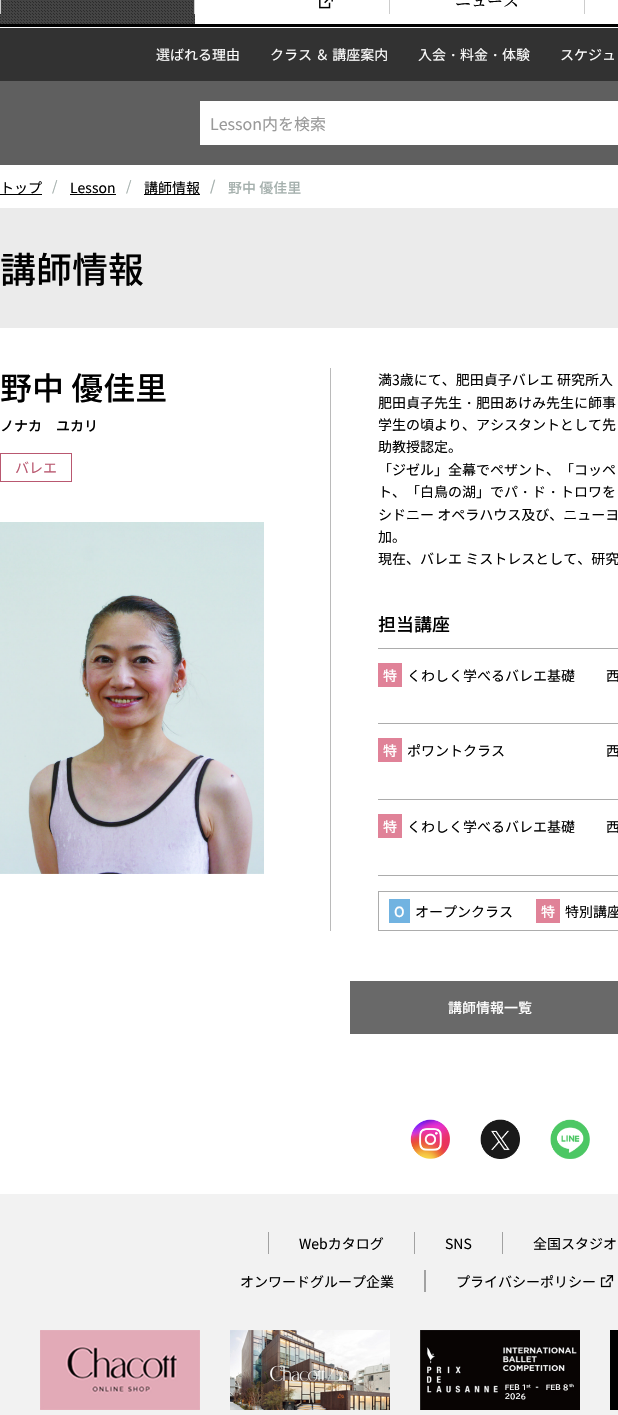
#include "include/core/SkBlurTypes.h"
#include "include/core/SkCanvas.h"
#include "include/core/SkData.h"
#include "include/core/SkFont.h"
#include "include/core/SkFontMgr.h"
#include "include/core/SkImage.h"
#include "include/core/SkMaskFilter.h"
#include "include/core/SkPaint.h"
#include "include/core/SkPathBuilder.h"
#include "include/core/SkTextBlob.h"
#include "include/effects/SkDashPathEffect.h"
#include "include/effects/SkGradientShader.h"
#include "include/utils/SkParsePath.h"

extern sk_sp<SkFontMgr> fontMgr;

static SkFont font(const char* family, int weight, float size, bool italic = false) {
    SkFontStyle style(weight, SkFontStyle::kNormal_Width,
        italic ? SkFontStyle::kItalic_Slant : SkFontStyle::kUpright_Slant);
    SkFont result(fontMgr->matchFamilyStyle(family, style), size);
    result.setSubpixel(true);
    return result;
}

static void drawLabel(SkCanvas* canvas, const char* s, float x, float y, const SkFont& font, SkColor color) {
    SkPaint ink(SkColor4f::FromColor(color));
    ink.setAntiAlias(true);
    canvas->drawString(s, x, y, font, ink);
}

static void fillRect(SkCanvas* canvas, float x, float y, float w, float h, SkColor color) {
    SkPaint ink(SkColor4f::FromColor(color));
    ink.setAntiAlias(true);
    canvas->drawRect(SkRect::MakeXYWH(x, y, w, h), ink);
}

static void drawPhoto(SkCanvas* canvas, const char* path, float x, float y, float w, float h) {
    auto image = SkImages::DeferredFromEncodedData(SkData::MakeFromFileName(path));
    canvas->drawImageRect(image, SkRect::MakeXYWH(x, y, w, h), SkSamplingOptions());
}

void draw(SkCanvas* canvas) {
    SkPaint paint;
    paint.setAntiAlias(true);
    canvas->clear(0xFFFFFFFF);
    fillRect(canvas, 0, 24, 618, 3, 0xFF000000);
    drawPhoto(canvas, "assets/img1.png", 0, 0, 195, 24);
    fillRect(canvas, 194, 0, 1, 14, 0xFFCDCDCD);
    fillRect(canvas, 0, 0, 1, 14, 0xFFCDCDCD);
    fillRect(canvas, 389, 0, 1, 14, 0xFFCDCDCD);
    drawPhoto(canvas, "assets/img2.png", 319, 0, 14, 9);
    fillRect(canvas, 584, 0, 1, 14, 0xFFCDCDCD);
    SkFont font1 = font("Noto Serif JP", 500, 16);
    drawLabel(canvas, "ニュース", 455, 7, font1, 0xFF000000);
    fillRect(canvas, 0, 28, 618, 53, 0xFF323232);
    SkFont font2 = font("Noto Sans JP", 400, 14);
    drawLabel(canvas, "選ばれる理由", 156, 60, font2, 0xFFFFFFFF);
    drawLabel(canvas, "クラス ＆ 講座案内", 270, 60, font2, 0xFFFFFFFF);
    drawLabel(canvas, "入会", 418, 60, font2, 0xFFFFFFFF);
    SkFont font3 = font("WenQuanYi Zen Hei", 500, 14);
    drawLabel(canvas, "・", 446, 60, font3, 0xFFFFFFFF);
    drawLabel(canvas, "料金", 460, 60, font2, 0xFFFFFFFF);
    drawLabel(canvas, "・", 488, 60, font3, 0xFFFFFFFF);
    drawLabel(canvas, "体験", 502, 60, font2, 0xFFFFFFFF);
    drawLabel(canvas, "スケジュ", 560, 60, font2, 0xFFFFFFFF);
    fillRect(canvas, 0, 81, 618, 84, 0xFF5F5F5F);
    fillRect(canvas, 200, 101, 418, 44, 0xFFFFFFFF);
    SkFont font4 = font("Noto Sans JP", 400, 16);
    drawLabel(canvas, "Lesson内を検索", 210, 130, font4, 0xFF999999);
    fillRect(canvas, 0, 194, 42, 1, 0xFF000000);
    drawLabel(canvas, "トップ", 0, 193, font2, 0xFF000000);
    drawLabel(canvas, "/", 52, 191, font2, 0xFFA5B0AD);
    drawLabel(canvas, "Lesson", 70, 193, font2, 0xFF000000);
    fillRect(canvas, 70, 194, 46, 1, 0xFF000000);
    drawLabel(canvas, "/", 126, 191, font2, 0xFFA5B0AD);
    fillRect(canvas, 144, 194, 56, 1, 0xFF000000);
    drawLabel(canvas, "講師情報", 144, 193, font2, 0xFF000000);
    SkFont font5 = font("Noto Sans JP", 500, 14);
    drawLabel(canvas, "/", 210, 191, font5, 0xFFA5B0AD);
    drawLabel(canvas, "野中 優佳里", 228, 193, font5, 0xFFA5B0AD);
    fillRect(canvas, 0, 208, 618, 120, 0xFFEBEBEB);
    SkFont font6 = font("Noto Sans JP", 500, 36);
    drawLabel(canvas, "講師情報", 0, 283, font6, 0xFF000000);
    SkFont font7 = font("Noto Sans JP", 500, 32);
    drawLabel(canvas, "野中 優佳里", 0, 400, font7, 0xFF000000);
    drawLabel(canvas, "ノナカ　ユカリ", 0, 431, font5, 0xFF000000);
    paint.setStroke(true);
    paint.setStrokeWidth(1);
    paint.setColor(0xFFB95870);
    canvas->drawRect(SkRect::MakeXYWH(0.5f, 453.5f, 71, 28), paint);
    drawLabel(canvas, "バレエ", 15, 473, font2, 0xFFB95870);
    drawPhoto(canvas, "assets/img3.png", 0, 522, 264, 352);
    fillRect(canvas, 330, 368, 1, 563, 0xFFBABABA);
    drawLabel(canvas, "満3歳にて、肥田貞子バレエ 研究所入", 378, 385, font2, 0xFF000000);
    drawLabel(canvas, "肥田貞子先生", 378, 408, font2, 0xFF000000);
    drawLabel(canvas, "・", 462, 408, font3, 0xFF000000);
    drawLabel(canvas, "肥田あけみ先生に師事", 476, 408, font2, 0xFF000000);
    drawLabel(canvas, "学生の頃より、アシスタントとして先", 378, 430, font2, 0xFF000000);
    drawLabel(canvas, "助教授認定。", 378, 452, font2, 0xFF000000);
    drawLabel(canvas, "「ジゼル」全幕でペザント、「コッペ", 378, 475, font2, 0xFF000000);
    drawLabel(canvas, "ト、「白鳥の湖」でパ", 378, 497, font2, 0xFF000000);
    drawLabel(canvas, "・", 518, 497, font3, 0xFF000000);
    drawLabel(canvas, "ド", 532, 497, font2, 0xFF000000);
    drawLabel(canvas, "・", 546, 497, font3, 0xFF000000);
    drawLabel(canvas, "トロワを", 560, 497, font2, 0xFF000000);
    drawLabel(canvas, "シドニー オペラハウス及び、ニューヨ", 378, 520, font2, 0xFF000000);
    drawLabel(canvas, "加。", 378, 542, font2, 0xFF000000);
    drawLabel(canvas, "現在、バレエ ミストレスとして、研究", 378, 564, font2, 0xFF000000);
    SkFont font8 = font("Noto Sans JP", 500, 18);
    drawLabel(canvas, "担当講座", 378, 631, font8, 0xFF000000);
    fillRect(canvas, 378, 648, 240, 1, 0xFFACACAC);
    fillRect(canvas, 378, 723, 240, 1, 0xFFACACAC);
    fillRect(canvas, 378, 663, 24, 24, 0xFFE08298);
    drawLabel(canvas, "特", 383, 681, font5, 0xFFFFFFFF);
    drawLabel(canvas, "くわしく学べるバレエ基礎", 407, 681, font2, 0xFF000000);
    drawLabel(canvas, "西", 606, 681, font2, 0xFF000000);
    fillRect(canvas, 378, 799, 240, 1, 0xFFACACAC);
    fillRect(canvas, 378, 738, 24, 24, 0xFFE08298);
    drawLabel(canvas, "特", 383, 756, font5, 0xFFFFFFFF);
    drawLabel(canvas, "ポワントクラス", 407, 756, font2, 0xFF000000);
    drawLabel(canvas, "西", 606, 756, font2, 0xFF000000);
    fillRect(canvas, 378, 875, 240, 1, 0xFFACACAC);
    fillRect(canvas, 378, 814, 24, 24, 0xFFE08298);
    drawLabel(canvas, "特", 383, 832, font5, 0xFFFFFFFF);
    drawLabel(canvas, "くわしく学べるバレエ基礎", 407, 832, font2, 0xFF000000);
    drawLabel(canvas, "西", 606, 832, font2, 0xFF000000);
    paint.setColor(0xFFACACAC);
    canvas->drawRect(SkRect::MakeXYWH(378.5f, 891.5f, 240, 39), paint);
    fillRect(canvas, 389, 899, 21, 24, 0xFF71B3E1);
    drawLabel(canvas, "O", 394, 917, font5, 0xFFFFFFFF);
    drawLabel(canvas, "オープンクラス", 415, 917, font2, 0xFF000000);
    fillRect(canvas, 536, 899, 24, 24, 0xFFE08298);
    drawLabel(canvas, "特", 541, 917, font5, 0xFFFFFFFF);
    drawLabel(canvas, "特別講座", 565, 917, font2, 0xFF000000);
    fillRect(canvas, 350, 981, 268, 53, 0xFF696969);
    drawLabel(canvas, "講師情報一覧", 448, 1013, font5, 0xFFFFFFFF);
    drawPhoto(canvas, "assets/img4.png", 410, 1119, 40, 40);
    drawPhoto(canvas, "assets/img5.png", 480, 1119, 40, 40);
    drawPhoto(canvas, "assets/img6.png", 550, 1119, 40, 40);
    fillRect(canvas, 0, 1194, 618, 221, 0xFFF2F2F2);
    fillRect(canvas, 414, 1232, 1, 22, 0xFFA2A2A2);
    fillRect(canvas, 268, 1232, 1, 22, 0xFFA2A2A2);
    drawLabel(canvas, "Webカタログ", 299, 1249, font2, 0xFF000000);
    fillRect(canvas, 502, 1232, 1, 22, 0xFFA2A2A2);
    drawLabel(canvas, "SNS", 445, 1249, font2, 0xFF000000);
    drawLabel(canvas, "全国スタジオ", 533, 1249, font2, 0xFF000000);
    fillRect(canvas, 424, 1270, 2, 22, 0xFFA2A2A2);
    drawLabel(canvas, "オンワードグループ企業", 240, 1287, font2, 0xFF000000);
    drawLabel(canvas, "プライバシーポリシー", 456, 1287, font2, 0xFF000000);
    drawPhoto(canvas, "assets/img7.png", 600, 1275, 14, 13);
    drawPhoto(canvas, "assets/img8.png", 40, 1330, 160, 80);
    drawPhoto(canvas, "assets/img9.png", 230, 1330, 160, 80);
    drawPhoto(canvas, "assets/img10.png", 420, 1330, 160, 80);
    fillRect(canvas, 610, 1330, 8, 80, 0xFF000000);
}
